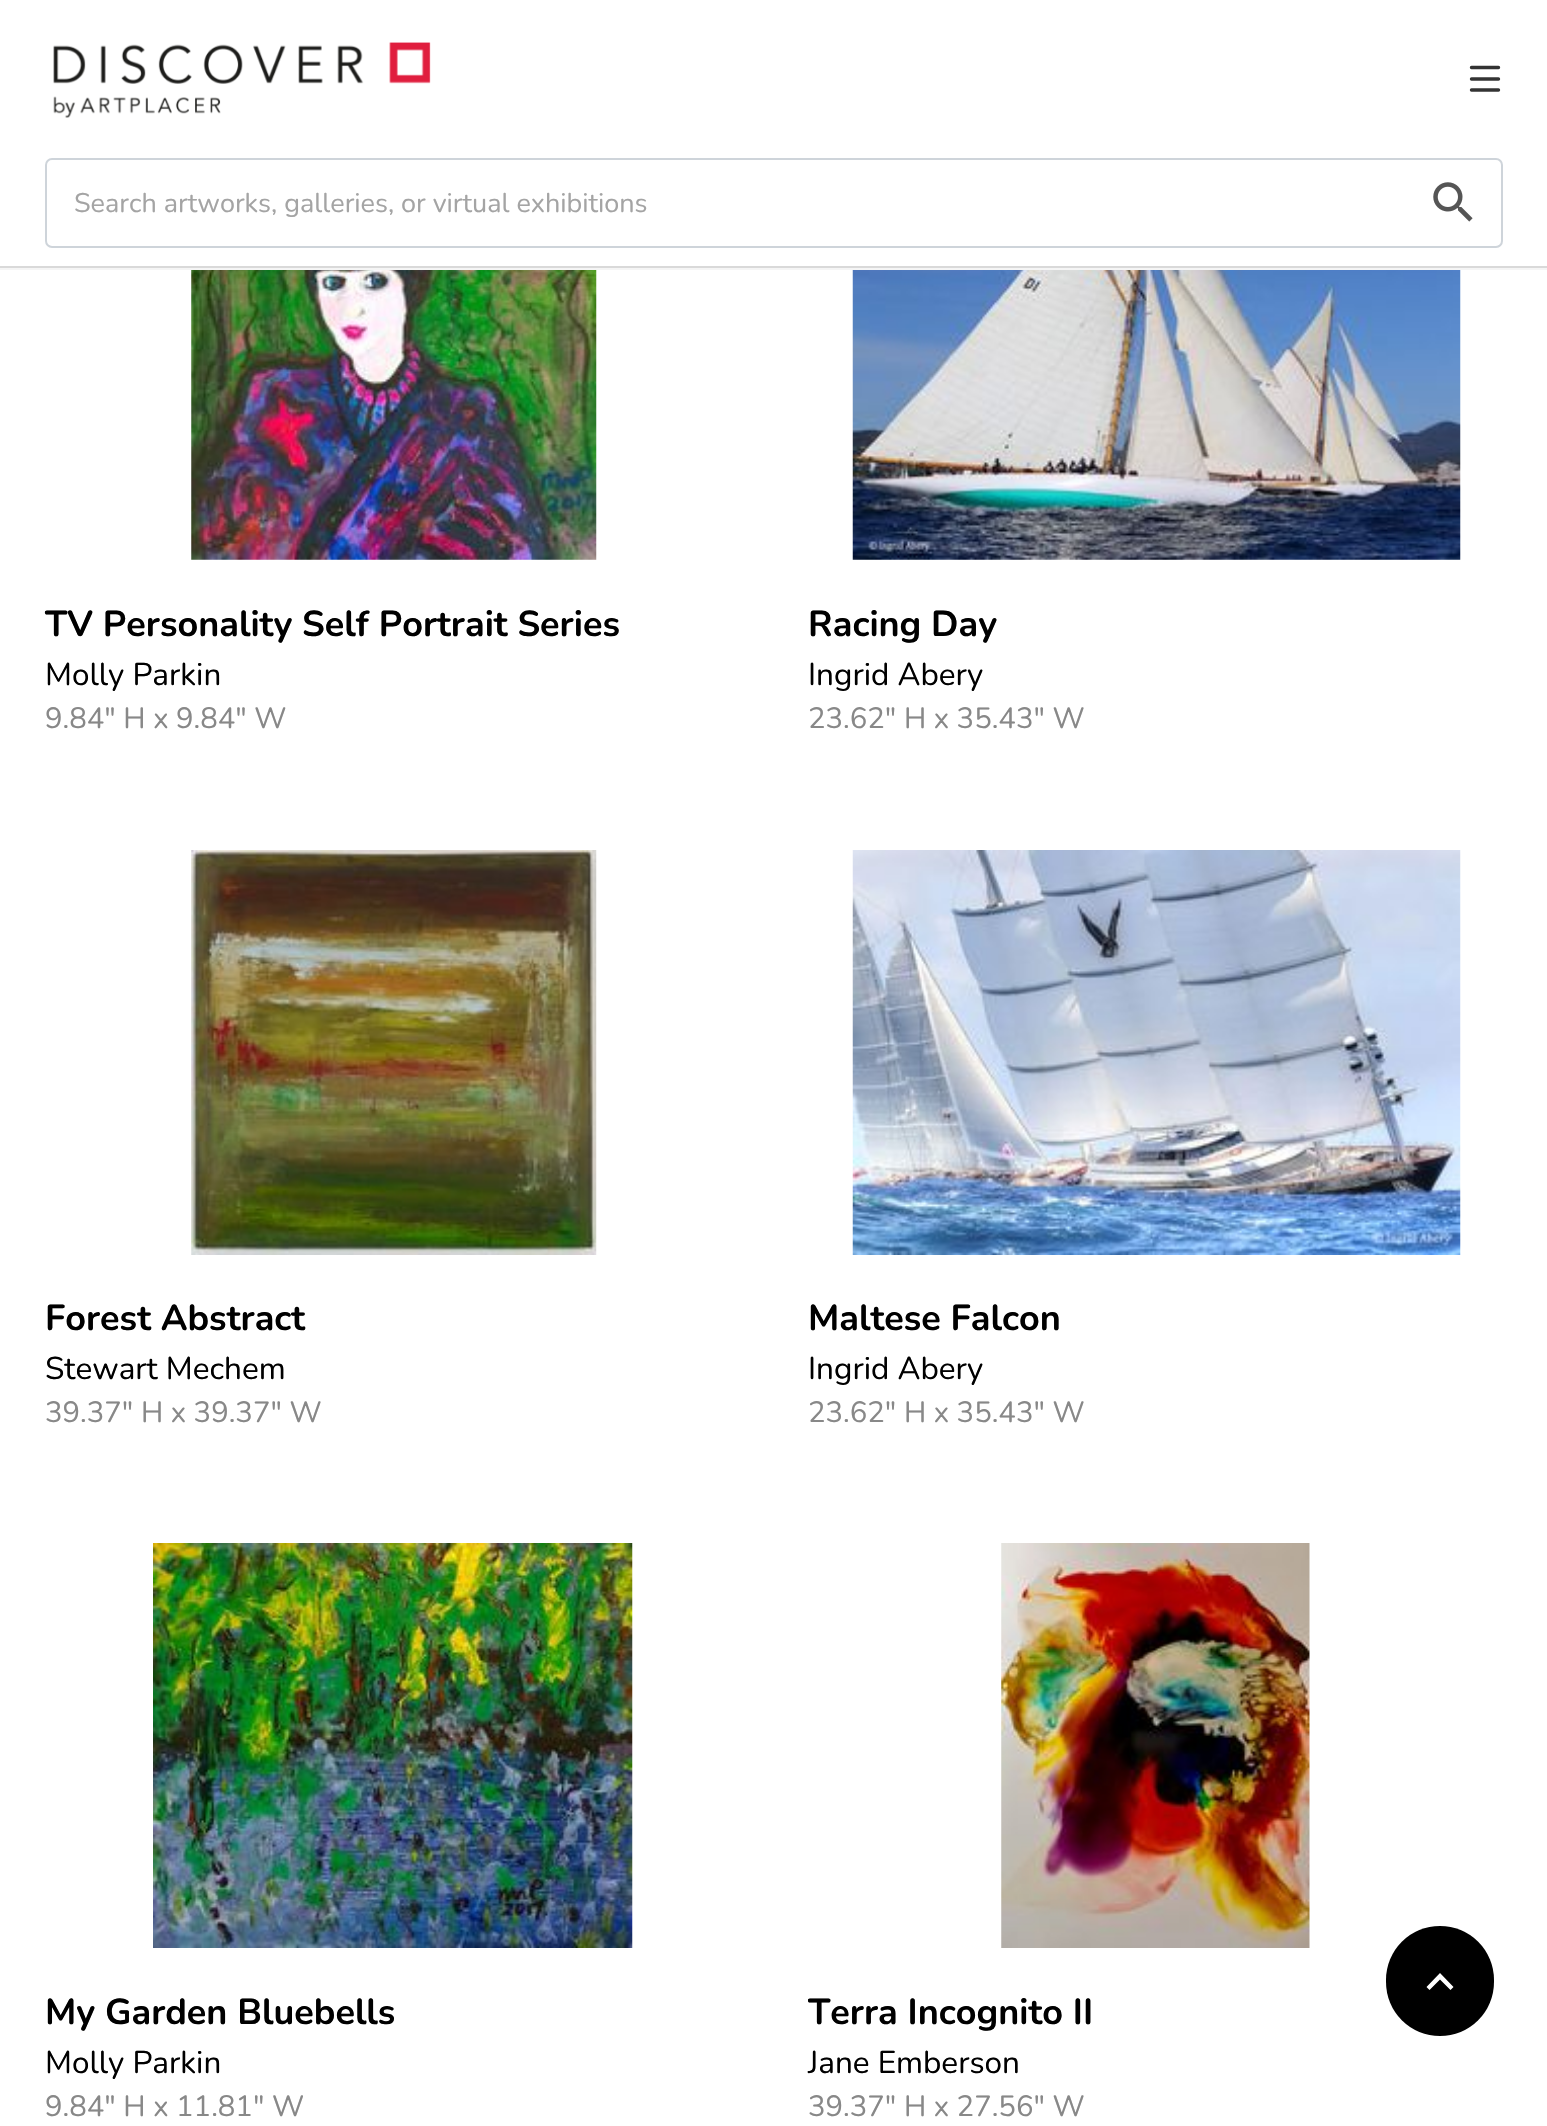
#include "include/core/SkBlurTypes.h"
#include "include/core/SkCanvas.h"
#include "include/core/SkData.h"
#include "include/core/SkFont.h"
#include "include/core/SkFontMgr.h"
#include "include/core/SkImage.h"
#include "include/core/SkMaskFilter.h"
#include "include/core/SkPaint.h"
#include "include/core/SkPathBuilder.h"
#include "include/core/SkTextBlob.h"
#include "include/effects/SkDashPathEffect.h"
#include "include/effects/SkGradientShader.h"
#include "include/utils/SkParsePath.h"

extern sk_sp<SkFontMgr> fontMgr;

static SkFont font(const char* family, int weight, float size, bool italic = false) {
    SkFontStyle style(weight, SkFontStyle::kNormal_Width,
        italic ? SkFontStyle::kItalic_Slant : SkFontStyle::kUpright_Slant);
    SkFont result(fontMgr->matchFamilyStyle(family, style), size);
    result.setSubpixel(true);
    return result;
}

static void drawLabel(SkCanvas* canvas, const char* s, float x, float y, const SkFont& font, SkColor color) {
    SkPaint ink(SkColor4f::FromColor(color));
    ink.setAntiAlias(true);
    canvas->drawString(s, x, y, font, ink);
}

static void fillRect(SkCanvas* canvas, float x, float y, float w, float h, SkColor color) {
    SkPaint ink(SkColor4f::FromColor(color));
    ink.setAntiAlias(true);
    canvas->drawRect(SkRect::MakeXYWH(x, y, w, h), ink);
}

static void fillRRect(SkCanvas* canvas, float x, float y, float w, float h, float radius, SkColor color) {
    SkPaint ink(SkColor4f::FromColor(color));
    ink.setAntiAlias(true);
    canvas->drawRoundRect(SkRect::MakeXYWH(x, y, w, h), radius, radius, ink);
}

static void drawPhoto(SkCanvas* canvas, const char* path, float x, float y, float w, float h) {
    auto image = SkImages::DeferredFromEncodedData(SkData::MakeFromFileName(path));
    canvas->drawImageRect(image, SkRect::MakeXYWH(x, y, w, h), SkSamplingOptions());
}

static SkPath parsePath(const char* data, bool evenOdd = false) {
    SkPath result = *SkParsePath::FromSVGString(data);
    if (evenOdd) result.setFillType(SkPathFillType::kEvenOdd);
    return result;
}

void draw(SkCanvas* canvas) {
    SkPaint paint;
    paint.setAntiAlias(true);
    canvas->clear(0xFFFFFFFF);
    fillRect(canvas, 0, 268, 1547, 2, 0xFFF5F5F5);
    fillRect(canvas, 0, 266, 1547, 2, 0xFFD9D9D9);
    drawPhoto(canvas, "assets/img1.png", 53, 42, 378, 76);
    paint.setStroke(true);
    paint.setStrokeWidth(3.4f);
    paint.setStrokeCap(SkPaint::kRound_Cap);
    paint.setColor(0xFF333333);
    canvas->drawPath(parsePath("M1471.5 67.5H1498.5M1471.5 79H1498.5M1498.5 90H1471.5"), paint);
    paint.setStrokeWidth(2);
    paint.setStrokeCap(SkPaint::kButt_Cap);
    paint.setColor(0xFFCED4DA);
    canvas->drawRoundRect(SkRect::MakeXYWH(46, 159, 1456, 88), 6, 6, paint);
    SkFont font1 = font("Nunito", 400, 27);
    drawLabel(canvas, "Search artworks, galleries, or virtual exhibitions", 74, 212, font1, 0xFFA4A4A4);
    drawPhoto(canvas, "assets/img2.png", 1433, 182, 40, 40);
    drawPhoto(canvas, "assets/img3.png", 191, 270, 406, 290);
    SkFont font2 = font("Nunito", 700, 36);
    drawLabel(canvas, "TV Personality Self Portrait Series", 45, 636, font2, 0xFF000000);
    SkFont font3 = font("Nunito", 400, 31.5f);
    drawLabel(canvas, "Molly Parkin", 45, 685, font3, 0xFF000000);
    SkFont font4 = font("Nunito", 400, 29.25f);
    drawLabel(canvas, "9.84\" H x 9.84\" W", 45, 728, font4, 0xFF888888);
    drawPhoto(canvas, "assets/img4.png", 852, 270, 609, 290);
    drawLabel(canvas, "Racing Day", 808, 636, font2, 0xFF000000);
    drawLabel(canvas, "Ingrid Abery", 808, 685, font3, 0xFF000000);
    drawLabel(canvas, "23.62\" H x 35.43\" W", 808, 728, font4, 0xFF888888);
    drawPhoto(canvas, "assets/img5.png", 191, 850, 406, 405);
    drawLabel(canvas, "Forest Abstract", 45, 1330, font2, 0xFF000000);
    drawLabel(canvas, "Stewart Mechem", 45, 1379, font3, 0xFF000000);
    drawLabel(canvas, "39.37\" H x 39.37\" W", 45, 1422, font4, 0xFF888888);
    drawPhoto(canvas, "assets/img6.png", 852, 850, 609, 405);
    drawLabel(canvas, "Maltese Falcon", 808, 1330, font2, 0xFF000000);
    drawLabel(canvas, "Ingrid Abery", 808, 1379, font3, 0xFF000000);
    drawLabel(canvas, "23.62\" H x 35.43\" W", 808, 1422, font4, 0xFF888888);
    drawPhoto(canvas, "assets/img7.png", 153, 1543, 480, 405);
    drawLabel(canvas, "My Garden Bluebells", 45, 2024, font2, 0xFF000000);
    drawLabel(canvas, "Molly Parkin", 45, 2073, font3, 0xFF000000);
    drawLabel(canvas, "9.84\" H x 11.81\" W", 45, 2116, font4, 0xFF888888);
    drawPhoto(canvas, "assets/img8.png", 1001, 1543, 309, 405);
    canvas->save();
    canvas->clipRect(SkRect::MakeXYWH(808, 1985, 695, 54));
    drawLabel(canvas, "Terra Incognito II", 808, 2024, font2, 0xFF000000);
    canvas->restore();
    drawLabel(canvas, "Jane Emberson", 808, 2073, font3, 0xFF000000);
    drawLabel(canvas, "39.37\" H x 27.56\" W", 808, 2116, font4, 0xFF888888);
    fillRRect(canvas, 1386, 1926, 108, 110, 54, 0xFF000000);
    paint.setStroke(false);
    paint.setColor(0xFFFFFFFF);
    canvas->drawPath(parsePath("M1440 1973L1426.5 1987L1429.5 1990L1440 1979.5L1450.5 1990L1453.5 1987Z"), paint);
}
